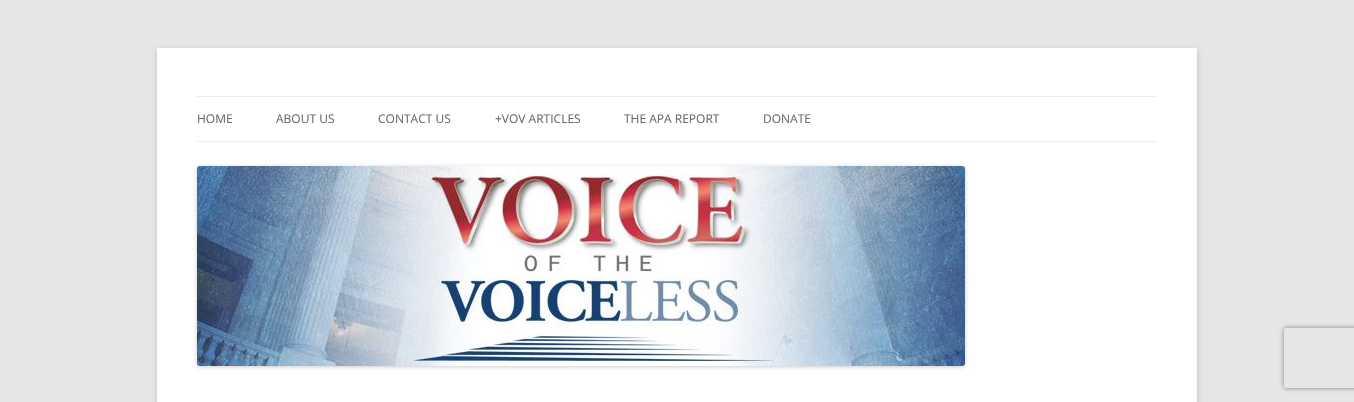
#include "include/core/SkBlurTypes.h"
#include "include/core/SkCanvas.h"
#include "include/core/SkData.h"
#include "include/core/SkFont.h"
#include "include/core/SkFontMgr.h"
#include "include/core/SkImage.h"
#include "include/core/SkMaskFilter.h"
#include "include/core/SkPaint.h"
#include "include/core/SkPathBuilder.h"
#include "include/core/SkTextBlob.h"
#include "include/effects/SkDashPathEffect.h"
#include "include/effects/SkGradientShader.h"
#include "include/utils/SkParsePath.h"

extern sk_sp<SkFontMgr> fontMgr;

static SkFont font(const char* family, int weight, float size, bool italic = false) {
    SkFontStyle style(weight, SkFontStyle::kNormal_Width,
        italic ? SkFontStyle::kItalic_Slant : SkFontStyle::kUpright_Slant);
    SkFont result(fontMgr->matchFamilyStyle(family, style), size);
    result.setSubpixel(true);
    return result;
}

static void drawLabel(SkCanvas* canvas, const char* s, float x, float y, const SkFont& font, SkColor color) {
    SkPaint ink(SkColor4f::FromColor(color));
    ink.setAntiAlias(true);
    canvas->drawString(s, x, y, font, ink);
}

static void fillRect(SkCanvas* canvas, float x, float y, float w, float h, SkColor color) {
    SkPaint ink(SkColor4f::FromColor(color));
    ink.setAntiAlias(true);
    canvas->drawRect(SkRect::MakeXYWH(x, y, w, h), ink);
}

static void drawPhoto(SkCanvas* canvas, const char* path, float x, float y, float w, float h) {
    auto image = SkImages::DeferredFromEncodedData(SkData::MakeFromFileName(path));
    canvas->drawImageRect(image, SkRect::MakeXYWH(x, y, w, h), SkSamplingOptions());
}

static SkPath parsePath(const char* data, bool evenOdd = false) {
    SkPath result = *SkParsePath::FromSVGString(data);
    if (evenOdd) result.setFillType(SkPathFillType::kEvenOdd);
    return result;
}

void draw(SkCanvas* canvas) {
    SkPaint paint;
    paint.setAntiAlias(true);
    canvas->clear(0xFFE6E6E6);
    paint.setColor(0x4D646464);
    paint.setMaskFilter(SkMaskFilter::MakeBlur(kNormal_SkBlurStyle, 3));
    canvas->drawRect(SkRect::MakeXYWH(157, 50, 1040, 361), paint);
    paint.setMaskFilter(nullptr);
    fillRect(canvas, 157, 48, 1040, 354, 0xFFFFFFFF);
    fillRect(canvas, 197, 96, 960, 1, 0xFFEDEDED);
    fillRect(canvas, 197, 141, 960, 1, 0xFFEDEDED);
    SkFont font1 = font("Open Sans", 400, 12);
    drawLabel(canvas, "HOME", 197, 123, font1, 0xFF6A6A6A);
    drawLabel(canvas, "ABOUT US", 276, 123, font1, 0xFF6A6A6A);
    drawLabel(canvas, "CONTACT US", 378, 123, font1, 0xFF6A6A6A);
    drawLabel(canvas, "+VOV ARTICLES", 495, 123, font1, 0xFF6A6A6A);
    drawLabel(canvas, "THE APA REPORT", 624, 123, font1, 0xFF6A6A6A);
    drawLabel(canvas, "DONATE", 763, 123, font1, 0xFF6A6A6A);
    paint.setColor(0x33000000);
    paint.setMaskFilter(SkMaskFilter::MakeBlur(kNormal_SkBlurStyle, 2));
    canvas->drawRoundRect(SkRect::MakeXYWH(197, 167, 768, 200), 3, 3, paint);
    paint.setMaskFilter(nullptr);
    drawPhoto(canvas, "assets/img1.png", 197, 166, 768, 200);
    canvas->save();
    canvas->clipPath(parsePath("M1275 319H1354V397H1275ZM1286 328H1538C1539 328 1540 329 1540 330V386C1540 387 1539 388 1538 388H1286C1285 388 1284 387 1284 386V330C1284 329 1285 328 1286 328Z", true), true);
    paint.setColor(0xFF808080);
    paint.setMaskFilter(SkMaskFilter::MakeBlur(kNormal_SkBlurStyle, 2.5f));
    canvas->drawRoundRect(SkRect::MakeXYWH(1284, 328, 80, 60), 2, 2, paint);
    paint.setMaskFilter(nullptr);
    canvas->restore();
}
